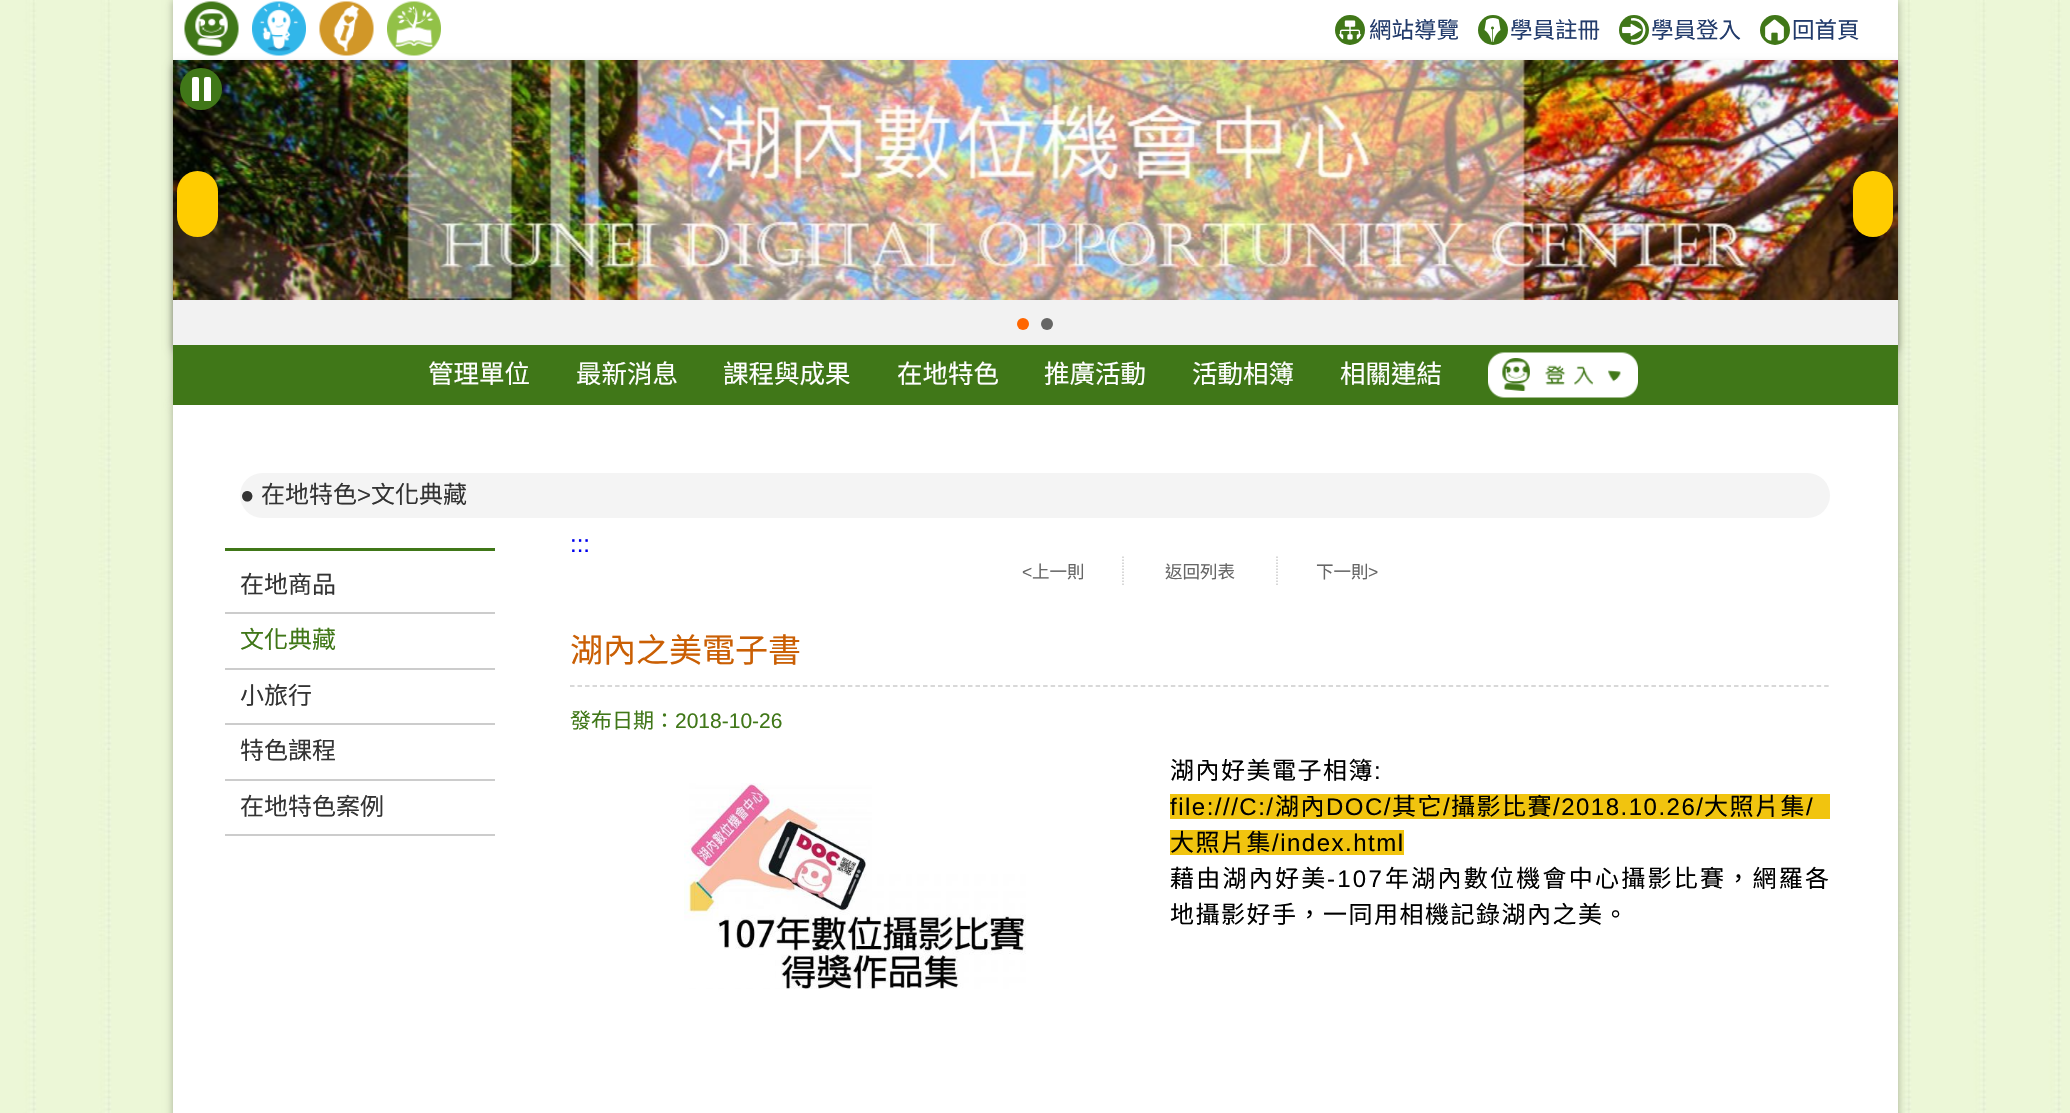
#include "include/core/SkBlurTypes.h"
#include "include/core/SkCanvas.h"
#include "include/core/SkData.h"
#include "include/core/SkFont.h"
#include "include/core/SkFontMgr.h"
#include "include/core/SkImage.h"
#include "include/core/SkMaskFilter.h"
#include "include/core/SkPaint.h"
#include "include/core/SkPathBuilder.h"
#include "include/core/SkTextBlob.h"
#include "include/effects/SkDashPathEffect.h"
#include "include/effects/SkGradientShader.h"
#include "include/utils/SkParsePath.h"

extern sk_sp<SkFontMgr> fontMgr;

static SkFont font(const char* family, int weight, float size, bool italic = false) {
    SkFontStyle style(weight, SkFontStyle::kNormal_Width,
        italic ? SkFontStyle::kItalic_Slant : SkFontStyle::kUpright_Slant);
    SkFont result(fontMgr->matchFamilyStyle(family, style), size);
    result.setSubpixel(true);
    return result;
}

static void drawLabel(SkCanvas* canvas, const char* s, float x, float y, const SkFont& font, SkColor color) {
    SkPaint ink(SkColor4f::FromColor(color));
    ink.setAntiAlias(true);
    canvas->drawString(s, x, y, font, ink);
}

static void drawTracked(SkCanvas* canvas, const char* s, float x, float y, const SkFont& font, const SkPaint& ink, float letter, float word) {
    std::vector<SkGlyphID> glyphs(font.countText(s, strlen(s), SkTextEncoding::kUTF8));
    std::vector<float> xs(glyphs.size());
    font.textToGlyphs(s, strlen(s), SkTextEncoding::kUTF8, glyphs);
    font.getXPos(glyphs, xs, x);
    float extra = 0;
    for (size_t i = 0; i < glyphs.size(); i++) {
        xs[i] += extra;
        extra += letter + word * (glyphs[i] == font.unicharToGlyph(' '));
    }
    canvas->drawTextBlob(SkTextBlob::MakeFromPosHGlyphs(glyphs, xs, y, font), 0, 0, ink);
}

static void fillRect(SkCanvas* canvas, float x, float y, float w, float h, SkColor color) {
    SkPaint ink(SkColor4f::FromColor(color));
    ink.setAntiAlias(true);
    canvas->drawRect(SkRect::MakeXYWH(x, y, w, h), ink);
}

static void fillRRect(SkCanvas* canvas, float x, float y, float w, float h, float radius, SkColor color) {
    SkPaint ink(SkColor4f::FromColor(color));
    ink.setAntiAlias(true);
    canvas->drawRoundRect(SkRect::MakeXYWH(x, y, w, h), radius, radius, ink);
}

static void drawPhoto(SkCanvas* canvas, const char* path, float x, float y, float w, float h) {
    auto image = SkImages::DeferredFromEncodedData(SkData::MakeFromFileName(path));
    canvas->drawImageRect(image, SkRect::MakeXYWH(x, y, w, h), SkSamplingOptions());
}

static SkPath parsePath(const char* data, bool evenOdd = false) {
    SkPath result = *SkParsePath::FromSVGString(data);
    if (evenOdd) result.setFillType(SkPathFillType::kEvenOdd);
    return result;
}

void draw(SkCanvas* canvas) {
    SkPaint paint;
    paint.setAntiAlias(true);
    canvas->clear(0xFFFFFFFF);
    drawPhoto(canvas, "assets/img1.png", 0, 0, 2070, 1113);
    paint.setColor(0x4D000000);
    paint.setMaskFilter(SkMaskFilter::MakeBlur(kNormal_SkBlurStyle, 4));
    canvas->drawRect(SkRect::MakeXYWH(173, 0, 1725, 405), paint);
    paint.setMaskFilter(nullptr);
    fillRect(canvas, 173, 0, 1725, 60, 0xFFFFFFFF);
    drawPhoto(canvas, "assets/img2.png", 184, 1, 55, 55);
    drawPhoto(canvas, "assets/img3.png", 252, 1, 54, 55);
    drawPhoto(canvas, "assets/img4.png", 319, 1, 55, 55);
    drawPhoto(canvas, "assets/img5.png", 387, 1, 54, 55);
    paint.setColor(0xFF407718);
    canvas->drawCircle(1350, 30, 15, paint);
    drawPhoto(canvas, "assets/img6.png", 1338, 20, 24, 20);
    SkFont font1 = font("Noto Sans CJK TC", 400, 22.5f);
    drawLabel(canvas, "網站導覽", 1369, 38, font1, 0xFF223B6B);
    canvas->drawCircle(1493, 30, 15, paint);
    drawPhoto(canvas, "assets/img7.png", 1484, 18, 17, 24);
    drawLabel(canvas, "學員註冊", 1510, 38, font1, 0xFF223B6B);
    canvas->drawCircle(1634, 30, 15, paint);
    drawPhoto(canvas, "assets/img8.png", 1622, 18, 24, 24);
    drawLabel(canvas, "學員登入", 1651, 38, font1, 0xFF223B6B);
    canvas->drawCircle(1775, 30, 15, paint);
    drawPhoto(canvas, "assets/img9.png", 1765, 19, 19, 22);
    drawLabel(canvas, "回首頁", 1792, 38, font1, 0xFF223B6B);
    paint.setColor(0x4D000000);
    paint.setMaskFilter(SkMaskFilter::MakeBlur(kNormal_SkBlurStyle, 4));
    canvas->drawRect(SkRect::MakeXYWH(173, 65, 1725, 285), paint);
    paint.setMaskFilter(nullptr);
    fillRect(canvas, 173, 300, 1725, 45, 0xFFF2F2F2);
    drawPhoto(canvas, "assets/img10.png", 173, 60, 1725, 240);
    fillRRect(canvas, 177, 171, 41, 66, 20.5f, 0xFFFFCC00);
    fillRRect(canvas, 1853, 171, 40, 66, 20, 0xFFFFCC00);
    paint.setColor(0xFFFF6600);
    canvas->drawCircle(1023, 324, 6, paint);
    paint.setColor(0xFF666665);
    canvas->drawCircle(1047, 324, 6, paint);
    paint.setColor(0xFF407718);
    canvas->drawCircle(201, 89, 21, paint);
    canvas->save();
    canvas->clipRect(SkRect::MakeXYWH(189, 77, 24, 24));
    fillRRect(canvas, 192, 77, 7, 25, 2, 0xFFFFFFFF);
    fillRRect(canvas, 204, 77, 7, 25, 2, 0xFFFFFFFF);
    canvas->restore();
    paint.setColor(0x4D000000);
    paint.setMaskFilter(SkMaskFilter::MakeBlur(kNormal_SkBlurStyle, 4));
    canvas->drawRect(SkRect::MakeXYWH(173, 405, 1725, 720), paint);
    paint.setMaskFilter(nullptr);
    fillRect(canvas, 173, 345, 1725, 60, 0xFF407718);
    SkFont font2 = font("Noto Sans CJK TC", 400, 25.5f);
    drawLabel(canvas, "管理單位", 428, 383, font2, 0xFFFFFFFF);
    drawLabel(canvas, "最新消息", 576, 383, font2, 0xFFFFFFFF);
    drawLabel(canvas, "課程與成果", 723, 383, font2, 0xFFFFFFFF);
    drawLabel(canvas, "在地特色", 897, 383, font2, 0xFFFFFFFF);
    drawLabel(canvas, "推廣活動", 1044, 383, font2, 0xFFFFFFFF);
    drawLabel(canvas, "活動相簿", 1192, 383, font2, 0xFFFFFFFF);
    drawLabel(canvas, "相關連結", 1340, 383, font2, 0xFFFFFFFF);
    drawPhoto(canvas, "assets/img11.png", 1488, 352, 150, 46);
    fillRect(canvas, 173, 405, 1725, 708, 0xFFFFFFFF);
    fillRRect(canvas, 240, 473, 1590, 45, 22.5f, 0xFFF4F4F4);
    SkFont font3 = font("Liberation Sans", 400, 24);
    drawLabel(canvas, "●", 240, 503, font3, 0xFF333333);
    SkFont font4 = font("Noto Sans CJK TC", 400, 24);
    drawLabel(canvas, "在地特色", 261, 503, font4, 0xFF333333);
    drawLabel(canvas, ">", 357, 503, font3, 0xFF333333);
    drawLabel(canvas, "文化典藏", 371, 503, font4, 0xFF333333);
    fillRect(canvas, 225, 548, 270, 3, 0xFF407718);
    fillRect(canvas, 225, 612, 270, 2, 0xFFCCCCCC);
    drawLabel(canvas, "在地商品", 240, 593, font4, 0xFF333333);
    fillRect(canvas, 225, 668, 270, 2, 0xFFCCCCCC);
    drawLabel(canvas, "文化典藏", 240, 648, font4, 0xFF407718);
    fillRect(canvas, 225, 723, 270, 2, 0xFFCCCCCC);
    drawLabel(canvas, "小旅行", 240, 704, font4, 0xFF333333);
    fillRect(canvas, 225, 779, 270, 2, 0xFFCCCCCC);
    drawLabel(canvas, "特色課程", 240, 759, font4, 0xFF333333);
    fillRect(canvas, 225, 834, 270, 2, 0xFFCCCCCC);
    drawLabel(canvas, "在地特色案例", 240, 815, font4, 0xFF333333);
    drawLabel(canvas, ":::", 570, 552, font3, 0xFF0000EE);
    paint.setStroke(true);
    paint.setStrokeWidth(1.5f);
    paint.setColor(0xFFCCCCCC);
    paint.setPathEffect(SkDashPathEffect::Make({{1.5f, 1.5f}}, 0));
    canvas->drawPath(parsePath("M1123 556.5V586.5"), paint);
    paint.setPathEffect(nullptr);
    SkFont font5 = font("Liberation Sans", 400, 17.5f);
    drawLabel(canvas, "<", 1022, 578, font5, 0xFF666666);
    SkFont font6 = font("Noto Sans CJK TC", 400, 17.5f);
    drawLabel(canvas, "上一則", 1032, 578, font6, 0xFF666666);
    drawLabel(canvas, "返回列表", 1165, 578, font6, 0xFF666666);
    paint.setPathEffect(SkDashPathEffect::Make({{1.5f, 1.5f}}, 0));
    canvas->drawPath(parsePath("M1277 556.5V586.5"), paint);
    paint.setPathEffect(nullptr);
    drawLabel(canvas, "下一則", 1316, 578, font6, 0xFF666666);
    drawLabel(canvas, ">", 1368, 578, font5, 0xFF666666);
    paint.setPathEffect(SkDashPathEffect::Make({{4.5f, 3.01f}}, 0));
    canvas->drawPath(parsePath("M570 686H1830"), paint);
    paint.setPathEffect(nullptr);
    SkFont font7 = font("Noto Sans CJK TC", 400, 33);
    drawLabel(canvas, "湖內之美電子書", 570, 662, font7, 0xFFCA5F04);
    SkFont font8 = font("Noto Sans CJK TC", 400, 21);
    drawLabel(canvas, "發布日期：", 570, 728, font8, 0xFF407718);
    SkFont font9 = font("Liberation Sans", 400, 21);
    drawLabel(canvas, "2018-10-26", 675, 728, font9, 0xFF407718);
    paint.setStroke(false);
    paint.setColor(0xFF000000);
    drawTracked(canvas, "湖內好美電子相簿", 1170, 779, font4, paint, 1.5f, 0);
    drawTracked(canvas, ":", 1374, 779, font3, paint, 1.5f, 0);
    drawPhoto(canvas, "assets/img12.png", 684, 783, 342, 206);
    fillRect(canvas, 1170, 794, 660, 25, 0xFFF1C40F);
    drawTracked(canvas, "file:///C:/", 1170, 815, font3, paint, 1.5f, 0);
    drawTracked(canvas, "湖內", 1275, 815, font4, paint, 1.5f, 0);
    drawTracked(canvas, "DOC/", 1326, 815, font3, paint, 1.5f, 0);
    drawTracked(canvas, "其它", 1392, 815, font4, paint, 1.5f, 0);
    drawTracked(canvas, "/", 1443, 815, font3, paint, 1.5f, 0);
    drawTracked(canvas, "攝影比賽", 1451, 815, font4, paint, 1.5f, 0);
    drawTracked(canvas, "/2018.10.26/", 1553, 815, font3, paint, 1.5f, 0);
    drawTracked(canvas, "大照片集", 1704, 815, font4, paint, 1.5f, 0);
    drawTracked(canvas, "/", 1806, 815, font3, paint, 1.5f, 0);
    fillRect(canvas, 1170, 830, 234, 25, 0xFFF1C40F);
    drawTracked(canvas, "大照片集", 1170, 851, font4, paint, 1.5f, 0);
    drawTracked(canvas, "/index.html", 1272, 851, font3, paint, 1.5f, 0);
    drawTracked(canvas, "藉由湖內好美", 1170, 887, font4, paint, 2.25f, 0);
    drawTracked(canvas, "-107", 1327, 887, font3, paint, 2.25f, 0);
    drawTracked(canvas, "年湖內數位機會中心攝影比賽，網羅各", 1385, 887, font4, paint, 2.25f, 0);
    drawTracked(canvas, "地攝影好手，一同用相機記錄湖內之美。", 1170, 923, font4, paint, 1.5f, 0);
}
